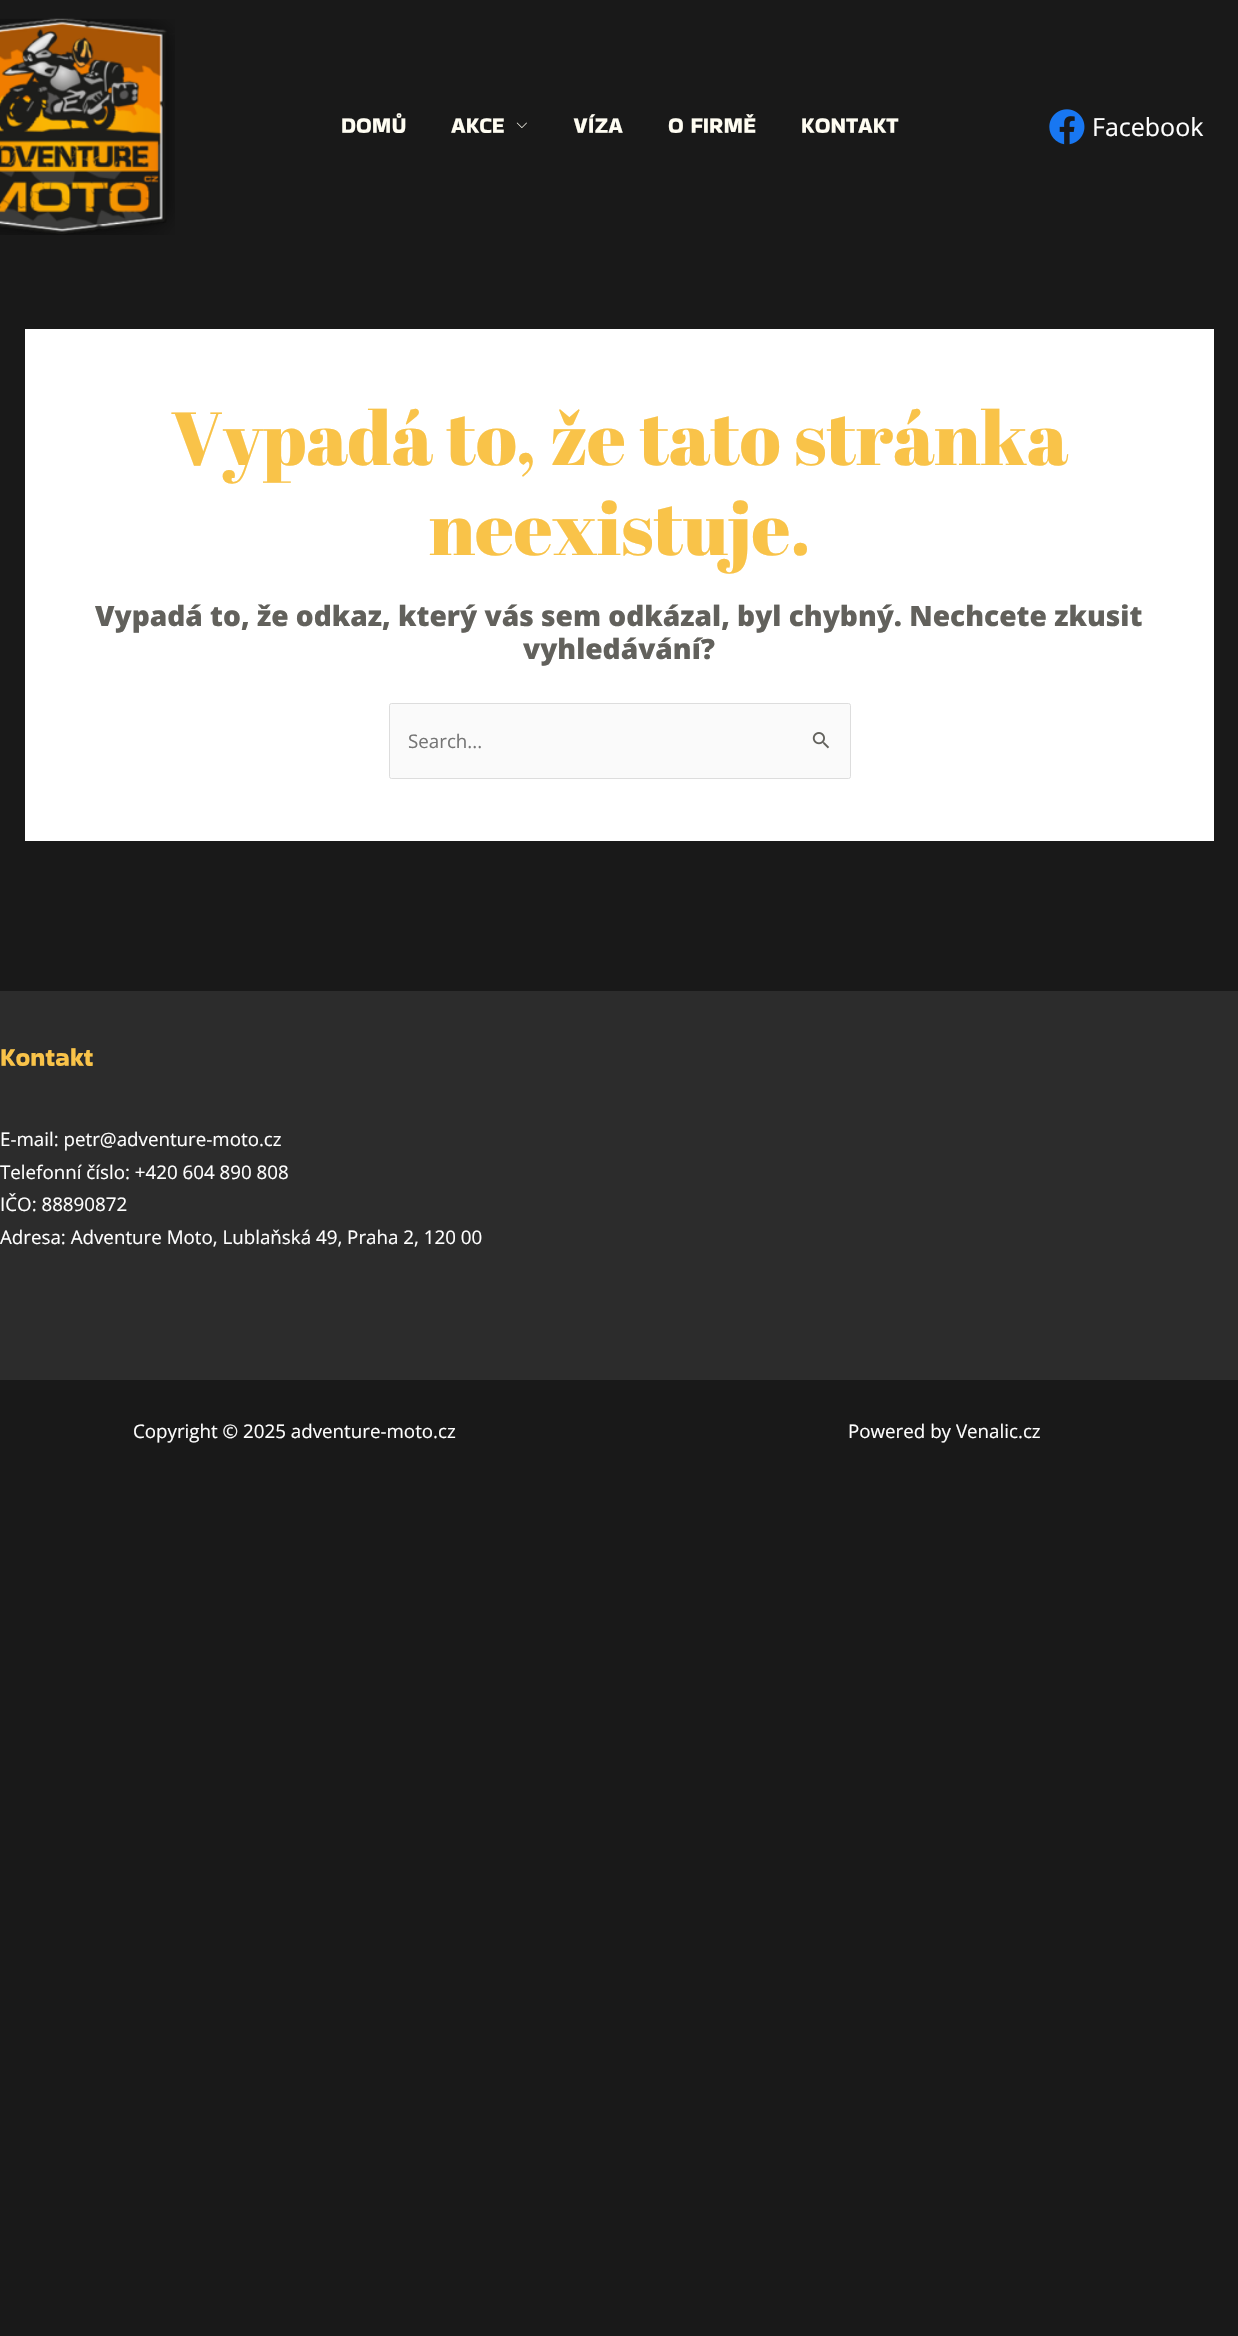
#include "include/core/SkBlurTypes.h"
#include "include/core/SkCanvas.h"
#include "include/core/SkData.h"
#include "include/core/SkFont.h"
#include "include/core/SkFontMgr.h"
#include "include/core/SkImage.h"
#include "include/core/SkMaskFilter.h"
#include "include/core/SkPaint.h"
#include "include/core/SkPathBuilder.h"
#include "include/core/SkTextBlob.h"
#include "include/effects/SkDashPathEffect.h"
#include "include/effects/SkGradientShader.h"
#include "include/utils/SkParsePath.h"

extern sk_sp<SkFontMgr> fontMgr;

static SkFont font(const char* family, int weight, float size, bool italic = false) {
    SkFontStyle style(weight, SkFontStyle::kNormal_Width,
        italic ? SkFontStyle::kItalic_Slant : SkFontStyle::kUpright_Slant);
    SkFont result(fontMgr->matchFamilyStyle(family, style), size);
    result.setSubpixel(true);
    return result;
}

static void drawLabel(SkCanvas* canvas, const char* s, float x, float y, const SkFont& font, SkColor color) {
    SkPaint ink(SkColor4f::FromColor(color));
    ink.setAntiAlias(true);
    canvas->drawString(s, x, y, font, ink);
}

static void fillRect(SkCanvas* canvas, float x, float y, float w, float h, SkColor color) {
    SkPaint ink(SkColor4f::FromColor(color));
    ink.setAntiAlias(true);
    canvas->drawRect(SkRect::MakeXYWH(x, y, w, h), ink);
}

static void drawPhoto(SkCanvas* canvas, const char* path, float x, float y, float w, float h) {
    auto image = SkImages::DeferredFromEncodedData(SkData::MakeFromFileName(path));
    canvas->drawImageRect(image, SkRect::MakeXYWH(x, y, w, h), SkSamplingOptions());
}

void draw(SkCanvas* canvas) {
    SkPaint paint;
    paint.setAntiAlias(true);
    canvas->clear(0xFF191919);
    drawPhoto(canvas, "assets/img1.png", 0, 18, 175, 217);
    SkFont font1 = font("Bakbak One", 400, 22.5f);
    drawLabel(canvas, "DOMŮ", 341, 133, font1, 0xFFFFFDF2);
    drawLabel(canvas, "AKCE", 451, 133, font1, 0xFFFFFDF2);
    drawPhoto(canvas, "assets/img2.png", 516, 122, 11, 6);
    drawLabel(canvas, "VÍZA", 573, 133, font1, 0xFFFFFDF2);
    drawLabel(canvas, "O FIRMĚ", 668, 133, font1, 0xFFFFFDF2);
    drawLabel(canvas, "KONTAKT", 801, 133, font1, 0xFFFFFDF2);
    drawPhoto(canvas, "assets/img3.png", 1049, 109, 36, 36);
    SkFont font2 = font("Open Sans", 400, 25);
    drawLabel(canvas, "Facebook", 1092, 136, font2, 0xFFFFFFFF);
    fillRect(canvas, 25, 329, 1189, 512, 0xFFFFFFFF);
    SkFont font3 = font("Abril Fatface", 400, 75);
    drawLabel(canvas, "Vypadá to, že tato stránka", 171, 465, font3, 0xFFF9C349);
    drawLabel(canvas, "neexistuje.", 429, 555, font3, 0xFFF9C349);
    SkFont font4 = font("Open Sans", 800, 28.1f);
    drawLabel(canvas, "Vypadá to, že odkaz, který vás sem odkázal, byl chybný. Nechcete zkusit", 95, 626, font4, 0xFF62615C);
    drawLabel(canvas, "vyhledávání?", 523, 659, font4, 0xFF62615C);
    paint.setColor(0xFFFAFAFA);
    canvas->drawRoundRect(SkRect::MakeXYWH(389.5f, 703.5f, 461, 75), 2, 2, paint);
    paint.setStroke(true);
    paint.setStrokeWidth(1);
    paint.setColor(0xFFDDDDDD);
    canvas->drawRoundRect(SkRect::MakeXYWH(389.5f, 703.5f, 461, 75), 2, 2, paint);
    SkFont font5 = font("Open Sans", 400, 18.75f);
    drawLabel(canvas, "Search...", 408, 748, font5, 0xFF757575);
    drawPhoto(canvas, "assets/img4.png", 812, 732, 18, 17);
    fillRect(canvas, 0, 991, 1238, 389, 0xFF2C2C2C);
    SkFont font6 = font("Bakbak One", 400, 26);
    drawLabel(canvas, "Kontakt", 0, 1066, font6, 0xFFF9C349);
    drawLabel(canvas, "E-mail: petr@adventure-moto.cz", 0, 1146, font5, 0xFFFFFFFF);
    drawLabel(canvas, "Telefonní číslo: +420 604 890 808", 0, 1179, font5, 0xFFFFFFFF);
    drawLabel(canvas, "IČO: 88890872", 0, 1211, font5, 0xFFFFFFFF);
    drawLabel(canvas, "Adresa: Adventure Moto, Lublaňská 49, Praha 2, 120 00", 0, 1244, font5, 0xFFFFFFFF);
    drawLabel(canvas, "Copyright © 2025 adventure-moto.cz", 133, 1438, font5, 0xFFFFFFFF);
    drawLabel(canvas, "Powered by Venalic.cz", 848, 1438, font5, 0xFFFFFFFF);
}
